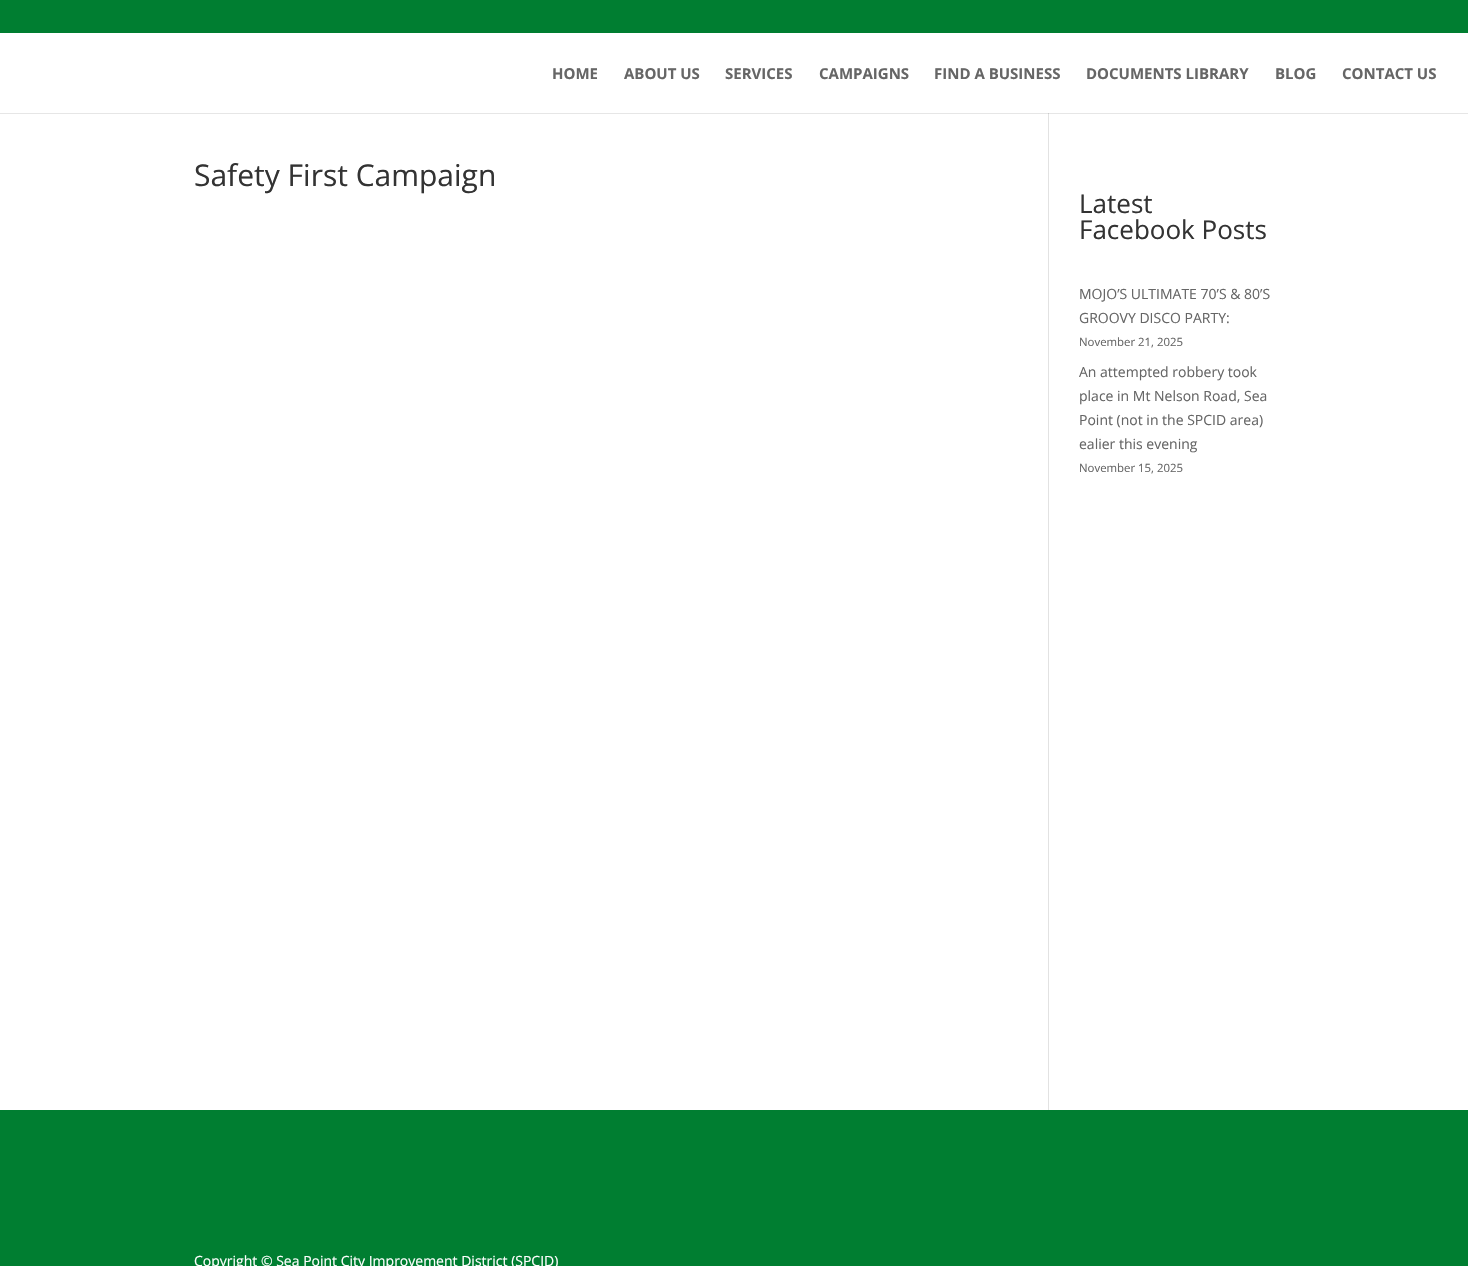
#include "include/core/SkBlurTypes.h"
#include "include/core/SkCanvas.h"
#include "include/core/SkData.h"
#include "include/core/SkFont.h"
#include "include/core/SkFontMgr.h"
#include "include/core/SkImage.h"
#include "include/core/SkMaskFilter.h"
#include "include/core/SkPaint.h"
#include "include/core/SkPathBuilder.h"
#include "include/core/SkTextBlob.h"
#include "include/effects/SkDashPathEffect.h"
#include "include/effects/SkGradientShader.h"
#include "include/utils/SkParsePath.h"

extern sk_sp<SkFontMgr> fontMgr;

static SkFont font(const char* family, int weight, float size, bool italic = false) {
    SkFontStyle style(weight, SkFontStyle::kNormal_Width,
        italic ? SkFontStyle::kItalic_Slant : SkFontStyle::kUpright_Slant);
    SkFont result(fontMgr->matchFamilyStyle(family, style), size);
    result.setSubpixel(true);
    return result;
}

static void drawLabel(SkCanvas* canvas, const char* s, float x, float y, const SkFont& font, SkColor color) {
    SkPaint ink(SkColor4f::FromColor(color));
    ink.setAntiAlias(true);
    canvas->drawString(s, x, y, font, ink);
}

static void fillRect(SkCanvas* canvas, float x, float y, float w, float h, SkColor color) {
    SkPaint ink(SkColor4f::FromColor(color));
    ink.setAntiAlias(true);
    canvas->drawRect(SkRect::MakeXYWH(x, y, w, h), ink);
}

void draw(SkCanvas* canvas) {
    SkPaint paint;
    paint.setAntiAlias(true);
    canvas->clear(0xFFFFFFFF);
    fillRect(canvas, 0, 113, 1468, 1, 0xFFE6E6E6);
    fillRect(canvas, 0, 0, 1468, 33, 0xFF007E31);
    SkFont font1 = font("Open Sans", 700, 15);
    drawLabel(canvas, "HOME", 552, 79, font1, 0xFF666666);
    drawLabel(canvas, "ABOUT US", 624, 79, font1, 0xFF666666);
    drawLabel(canvas, "SERVICES", 725, 79, font1, 0xFF666666);
    drawLabel(canvas, "CAMPAIGNS", 819, 79, font1, 0xFF666666);
    drawLabel(canvas, "FIND A BUSINESS", 934, 79, font1, 0xFF666666);
    drawLabel(canvas, "DOCUMENTS LIBRARY", 1086, 79, font1, 0xFF666666);
    drawLabel(canvas, "BLOG", 1275, 79, font1, 0xFF666666);
    drawLabel(canvas, "CONTACT US", 1342, 79, font1, 0xFF666666);
    fillRect(canvas, 1048, 114, 1, 996, 0xFFE2E2E2);
    fillRect(canvas, 1048, 113, 1, 1, 0xFFCBCBCB);
    SkFont font2 = font("Open Sans", 400, 30);
    drawLabel(canvas, "Safety First Campaign", 194, 186, font2, 0xFF333333);
    SkFont font3 = font("Open Sans", 400, 26);
    drawLabel(canvas, "Latest", 1079, 213, font3, 0xFF333333);
    drawLabel(canvas, "Facebook Posts", 1079, 239, font3, 0xFF333333);
    SkFont font4 = font("Open Sans", 400, 14);
    drawLabel(canvas, "MOJO’S ULTIMATE 70’S & 80’S", 1079, 299, font4, 0xFF666666);
    drawLabel(canvas, "GROOVY DISCO PARTY:", 1079, 323, font4, 0xFF666666);
    SkFont font5 = font("Open Sans", 400, 11.4f);
    drawLabel(canvas, "November 21, 2025", 1079, 346, font5, 0xFF666666);
    drawLabel(canvas, "An attempted robbery took", 1079, 377, font4, 0xFF666666);
    drawLabel(canvas, "place in Mt Nelson Road, Sea", 1079, 401, font4, 0xFF666666);
    drawLabel(canvas, "Point (not in the SPCID area)", 1079, 425, font4, 0xFF666666);
    drawLabel(canvas, "ealier this evening", 1079, 449, font4, 0xFF666666);
    drawLabel(canvas, "November 15, 2025", 1079, 472, font5, 0xFF666666);
    fillRect(canvas, 0, 1110, 1468, 156, 0xFF007E31);
    drawLabel(canvas, "Copyright © Sea Point City Improvement District (SPCID)", 194, 1266, font4, 0xFFFFFFFF);
}
